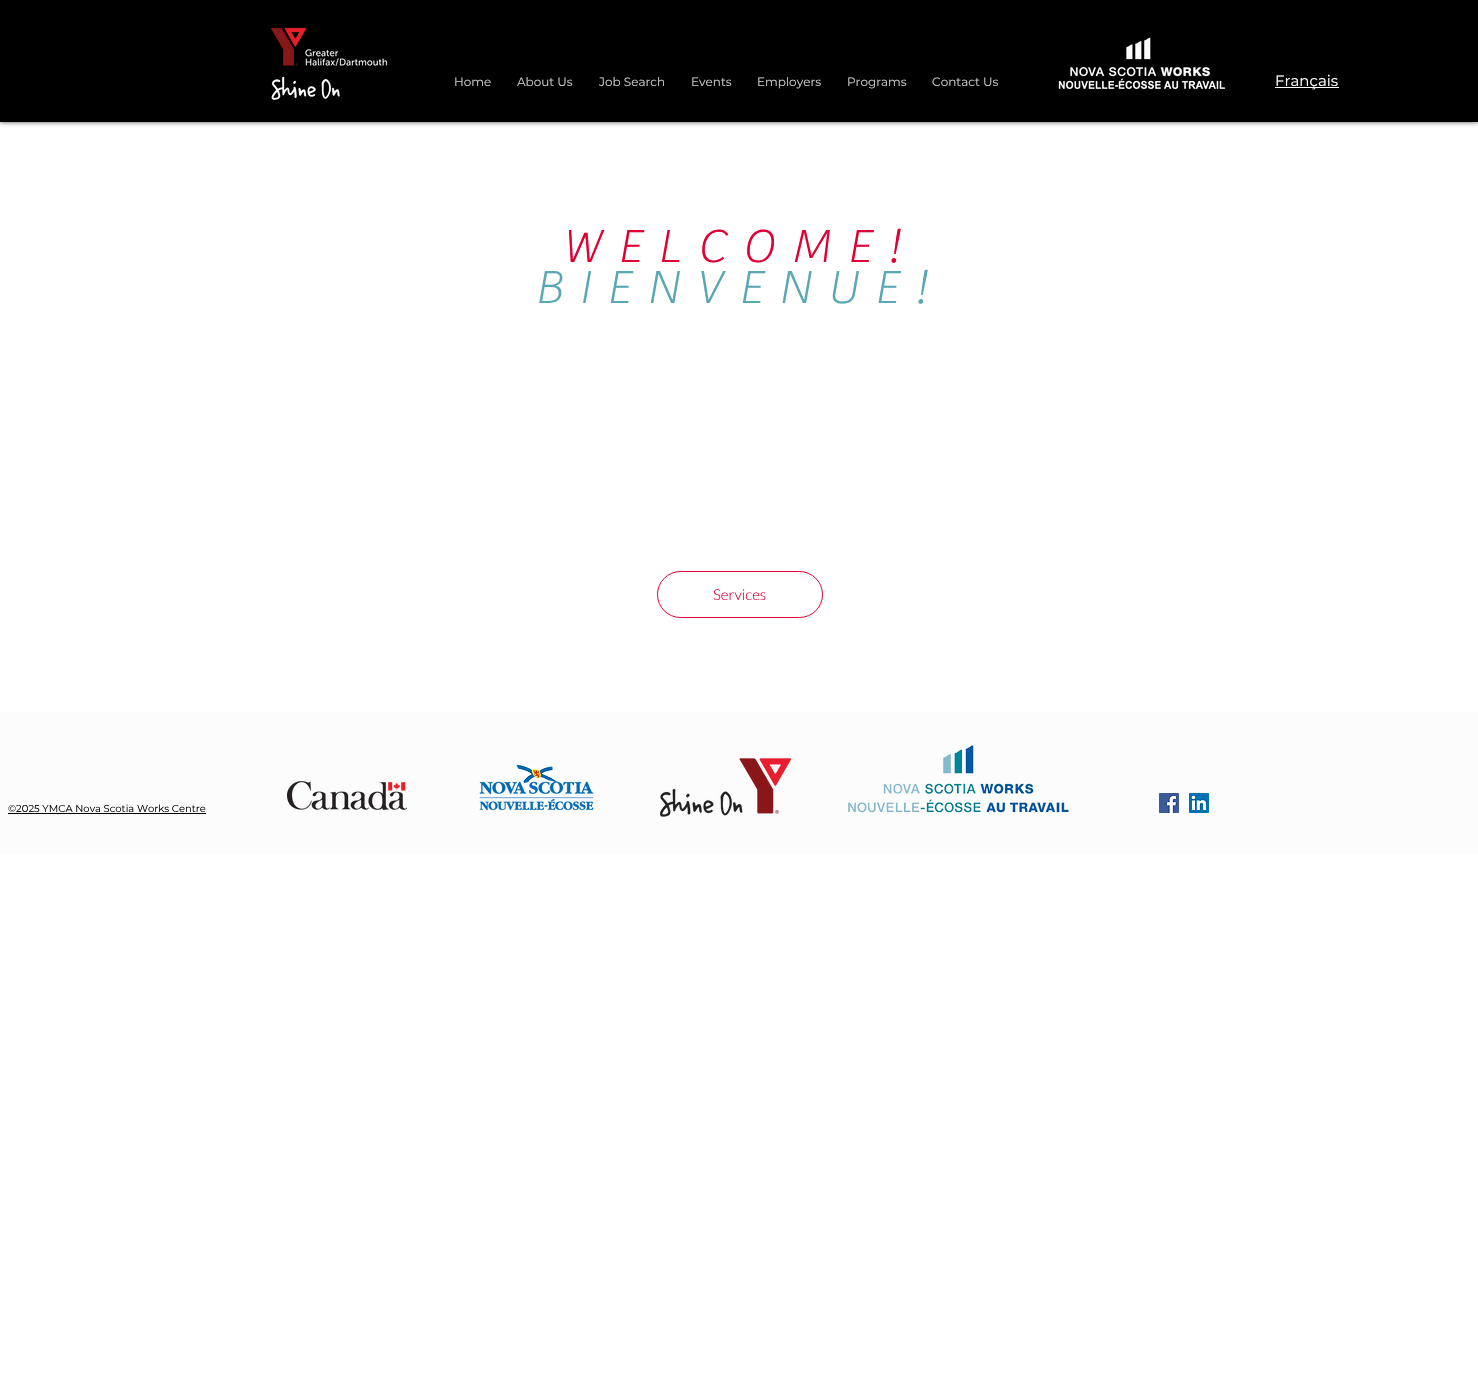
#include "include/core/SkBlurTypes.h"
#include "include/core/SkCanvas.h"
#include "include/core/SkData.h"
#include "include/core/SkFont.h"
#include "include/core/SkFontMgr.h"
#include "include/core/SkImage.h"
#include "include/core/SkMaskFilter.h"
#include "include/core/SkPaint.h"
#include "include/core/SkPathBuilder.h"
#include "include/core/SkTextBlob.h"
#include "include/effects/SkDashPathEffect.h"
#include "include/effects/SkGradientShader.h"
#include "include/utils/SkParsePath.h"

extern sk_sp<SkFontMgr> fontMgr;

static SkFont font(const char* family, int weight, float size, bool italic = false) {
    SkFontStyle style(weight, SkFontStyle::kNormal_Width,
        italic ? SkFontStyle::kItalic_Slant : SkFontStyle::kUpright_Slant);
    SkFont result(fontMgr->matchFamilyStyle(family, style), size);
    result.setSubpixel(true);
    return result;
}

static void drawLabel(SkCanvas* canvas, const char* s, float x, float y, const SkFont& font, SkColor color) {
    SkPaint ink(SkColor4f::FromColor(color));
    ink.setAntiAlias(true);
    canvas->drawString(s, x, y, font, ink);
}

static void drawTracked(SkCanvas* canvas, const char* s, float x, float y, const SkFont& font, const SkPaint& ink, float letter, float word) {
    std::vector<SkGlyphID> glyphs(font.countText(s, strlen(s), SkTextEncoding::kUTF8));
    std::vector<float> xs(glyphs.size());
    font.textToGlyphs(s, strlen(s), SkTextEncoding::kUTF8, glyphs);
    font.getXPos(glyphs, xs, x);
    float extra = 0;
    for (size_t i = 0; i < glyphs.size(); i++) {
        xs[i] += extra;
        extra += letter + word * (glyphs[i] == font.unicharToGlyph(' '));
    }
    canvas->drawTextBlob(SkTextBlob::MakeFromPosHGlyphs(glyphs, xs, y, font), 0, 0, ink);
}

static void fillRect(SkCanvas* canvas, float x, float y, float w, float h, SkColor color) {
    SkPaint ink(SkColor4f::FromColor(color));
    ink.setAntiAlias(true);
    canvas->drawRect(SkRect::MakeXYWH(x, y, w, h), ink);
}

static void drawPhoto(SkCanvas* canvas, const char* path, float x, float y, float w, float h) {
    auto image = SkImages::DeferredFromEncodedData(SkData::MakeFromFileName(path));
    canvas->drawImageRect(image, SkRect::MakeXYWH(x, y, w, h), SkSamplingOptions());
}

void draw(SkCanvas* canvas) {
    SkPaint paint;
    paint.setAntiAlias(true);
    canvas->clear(0xFFFFFFFF);
    paint.setColor(0xB3000000);
    paint.setMaskFilter(SkMaskFilter::MakeBlur(kNormal_SkBlurStyle, 2.5f));
    canvas->drawRect(SkRect::MakeXYWH(0, 0, 1478, 122), paint);
    paint.setMaskFilter(nullptr);
    fillRect(canvas, 0, 0, 1478, 122, 0xFF000000);
    drawPhoto(canvas, "assets/img1.png", 271, 27, 117, 73);
    SkFont font1 = font("Montserrat", 400, 12);
    drawLabel(canvas, "Home", 454, 86, font1, 0xFFCBCBCB);
    drawLabel(canvas, "About Us", 517, 86, font1, 0xFFCBCBCB);
    drawLabel(canvas, "Job Search", 599, 86, font1, 0xFFCBCBCB);
    drawLabel(canvas, "Events", 691, 86, font1, 0xFFCBCBCB);
    drawLabel(canvas, "Employers", 757, 86, font1, 0xFFCBCBCB);
    drawLabel(canvas, "Programs", 847, 86, font1, 0xFFCBCBCB);
    drawLabel(canvas, "Contact Us", 932, 86, font1, 0xFFCBCBCB);
    drawPhoto(canvas, "assets/img2.png", 1058, 37, 168, 53);
    fillRect(canvas, 1275, 87, 64, 1, 0xFFFFFFFF);
    SkFont font2 = font("Montserrat", 400, 15);
    drawLabel(canvas, "Français", 1275, 86, font2, 0xFFFFFFFF);
    SkFont font3 = font("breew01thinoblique", 100, 48);
    paint.setColor(0xFFE00034);
    drawTracked(canvas, "WELCOME!", 562, 262, font3, paint, 16.75f, 0);
    paint.setColor(0xFF59A7B2);
    drawTracked(canvas, "BIENVENUE!", 535, 303, font3, paint, 16.75f, 0);
    paint.setStroke(true);
    paint.setStrokeWidth(1);
    paint.setColor(0xFFE00034);
    canvas->drawRoundRect(SkRect::MakeXYWH(657.5f, 571.5f, 165, 46), 23, 23, paint);
    SkFont font4 = font("Lato", 300, 15);
    drawLabel(canvas, "Services", 713, 600, font4, 0xFFE00034);
    fillRect(canvas, 0, 712, 1478, 141, 0xFFFCFCFC);
    SkFont font5 = font("Montserrat", 400, 10);
    drawLabel(canvas, "©2025 YMCA Nova Scotia Works Centre", 8, 812, font5, 0xFF000000);
    fillRect(canvas, 8, 813, 198, 1, 0xFF000000);
    drawPhoto(canvas, "assets/img3.png", 287, 781, 120, 29);
    drawPhoto(canvas, "assets/img4.png", 479, 764, 115, 47);
    drawPhoto(canvas, "assets/img5.png", 660, 758, 131, 59);
    drawPhoto(canvas, "assets/img6.png", 848, 745, 221, 68);
    drawPhoto(canvas, "assets/img7.png", 1159, 793, 20, 20);
    drawPhoto(canvas, "assets/img8.png", 1189, 793, 20, 20);
}
